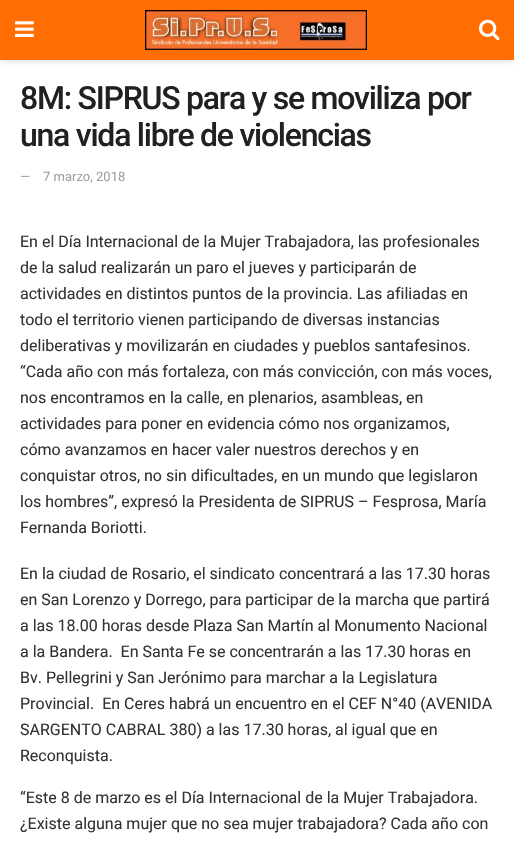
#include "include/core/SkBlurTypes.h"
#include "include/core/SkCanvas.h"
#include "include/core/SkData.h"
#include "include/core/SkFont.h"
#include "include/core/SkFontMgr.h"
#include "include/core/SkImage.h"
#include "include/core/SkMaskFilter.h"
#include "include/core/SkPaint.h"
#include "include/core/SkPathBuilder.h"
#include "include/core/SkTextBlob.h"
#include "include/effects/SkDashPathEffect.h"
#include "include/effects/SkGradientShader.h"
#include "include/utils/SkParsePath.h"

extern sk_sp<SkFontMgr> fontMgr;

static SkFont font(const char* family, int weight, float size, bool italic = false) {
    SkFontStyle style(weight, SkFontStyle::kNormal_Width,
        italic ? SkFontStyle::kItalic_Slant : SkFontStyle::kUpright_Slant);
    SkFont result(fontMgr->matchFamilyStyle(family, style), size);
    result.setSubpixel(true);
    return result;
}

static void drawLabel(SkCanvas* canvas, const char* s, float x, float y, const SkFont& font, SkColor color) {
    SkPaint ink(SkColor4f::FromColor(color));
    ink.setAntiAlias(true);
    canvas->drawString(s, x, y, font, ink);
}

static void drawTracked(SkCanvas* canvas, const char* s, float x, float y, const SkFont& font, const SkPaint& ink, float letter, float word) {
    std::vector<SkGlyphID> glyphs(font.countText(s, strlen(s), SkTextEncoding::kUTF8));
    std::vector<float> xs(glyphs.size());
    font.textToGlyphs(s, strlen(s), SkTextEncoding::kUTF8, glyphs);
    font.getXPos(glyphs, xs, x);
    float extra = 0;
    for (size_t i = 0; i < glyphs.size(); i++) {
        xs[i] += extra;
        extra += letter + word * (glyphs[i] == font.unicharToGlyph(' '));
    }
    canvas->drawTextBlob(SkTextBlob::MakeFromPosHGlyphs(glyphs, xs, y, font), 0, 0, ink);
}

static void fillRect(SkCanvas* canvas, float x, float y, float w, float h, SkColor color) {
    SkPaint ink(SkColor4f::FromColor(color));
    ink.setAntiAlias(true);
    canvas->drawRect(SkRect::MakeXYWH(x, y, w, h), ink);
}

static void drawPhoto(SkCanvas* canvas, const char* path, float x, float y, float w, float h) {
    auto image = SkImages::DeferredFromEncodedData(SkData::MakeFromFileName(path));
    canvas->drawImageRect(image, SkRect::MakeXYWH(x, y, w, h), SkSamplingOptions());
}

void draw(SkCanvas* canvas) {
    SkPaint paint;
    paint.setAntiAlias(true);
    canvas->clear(0xFFFFFFFF);
    paint.setColor(0x1A000000);
    paint.setMaskFilter(SkMaskFilter::MakeBlur(kNormal_SkBlurStyle, 3));
    canvas->drawRect(SkRect::MakeXYWH(0, 2, 514, 60), paint);
    paint.setMaskFilter(nullptr);
    fillRect(canvas, 0, 0, 514, 60, 0xFFFF6D03);
    drawPhoto(canvas, "assets/img1.png", 15, 21, 19, 16);
    drawPhoto(canvas, "assets/img2.png", 145, 10, 222, 40);
    drawPhoto(canvas, "assets/img3.png", 479, 19, 21, 22);
    SkFont font1 = font("Roboto", 500, 32);
    paint.setColor(0xFF212121);
    drawTracked(canvas, "8M: SIPRUS para y se moviliza por", 20, 109, font1, paint, -1.25f, 0);
    drawTracked(canvas, "una vida libre de violencias", 20, 146, font1, paint, -1.25f, 0);
    SkFont font2 = font("Roboto", 400, 13);
    drawLabel(canvas, "—", 20, 181, font2, 0xFFA0A0A0);
    drawLabel(canvas, "7 marzo, 2018", 43, 181, font2, 0xFFA0A0A0);
    SkFont font3 = font("Roboto", 400, 16);
    drawLabel(canvas, "En el Día Internacional de la Mujer Trabajadora, las profesionales", 20, 247, font3, 0xFF333333);
    drawLabel(canvas, "de la salud realizarán un paro el jueves y participarán de", 20, 273, font3, 0xFF333333);
    drawLabel(canvas, "actividades en distintos puntos de la provincia. Las afiliadas en", 20, 299, font3, 0xFF333333);
    drawLabel(canvas, "todo el territorio vienen participando de diversas instancias", 20, 325, font3, 0xFF333333);
    drawLabel(canvas, "deliberativas y movilizarán en ciudades y pueblos santafesinos.", 20, 351, font3, 0xFF333333);
    drawLabel(canvas, "“Cada año con más fortaleza, con más convicción, con más voces,", 20, 377, font3, 0xFF333333);
    drawLabel(canvas, "nos encontramos en la calle, en plenarios, asambleas, en", 20, 403, font3, 0xFF333333);
    drawLabel(canvas, "actividades para poner en evidencia cómo nos organizamos,", 20, 429, font3, 0xFF333333);
    drawLabel(canvas, "cómo avanzamos en hacer valer nuestros derechos y en", 20, 455, font3, 0xFF333333);
    drawLabel(canvas, "conquistar otros, no sin dificultades, en un mundo que legislaron", 20, 481, font3, 0xFF333333);
    drawLabel(canvas, "los hombres”, expresó la Presidenta de SIPRUS – Fesprosa, María", 20, 507, font3, 0xFF333333);
    drawLabel(canvas, "Fernanda Boriotti.", 20, 533, font3, 0xFF333333);
    drawLabel(canvas, "En la ciudad de Rosario, el sindicato concentrará a las 17.30 horas", 20, 579, font3, 0xFF333333);
    drawLabel(canvas, "en San Lorenzo y Dorrego, para participar de la marcha que partirá", 20, 605, font3, 0xFF333333);
    drawLabel(canvas, "a las 18.00 horas desde Plaza San Martín al Monumento Nacional", 20, 631, font3, 0xFF333333);
    drawLabel(canvas, "a la Bandera.  En Santa Fe se concentrarán a las 17.30 horas en", 20, 657, font3, 0xFF333333);
    drawLabel(canvas, "Bv. Pellegrini y San Jerónimo para marchar a la Legislatura", 20, 683, font3, 0xFF333333);
    drawLabel(canvas, "Provincial.  En Ceres habrá un encuentro en el CEF N°40 (AVENIDA", 20, 709, font3, 0xFF333333);
    drawLabel(canvas, "SARGENTO CABRAL 380) a las 17.30 horas, al igual que en", 20, 735, font3, 0xFF333333);
    drawLabel(canvas, "Reconquista.", 20, 761, font3, 0xFF333333);
    drawLabel(canvas, "“Este 8 de marzo es el Día Internacional de la Mujer Trabajadora.", 20, 803, font3, 0xFF333333);
    drawLabel(canvas, "¿Existe alguna mujer que no sea mujer trabajadora? Cada año con", 20, 829, font3, 0xFF333333);
}
